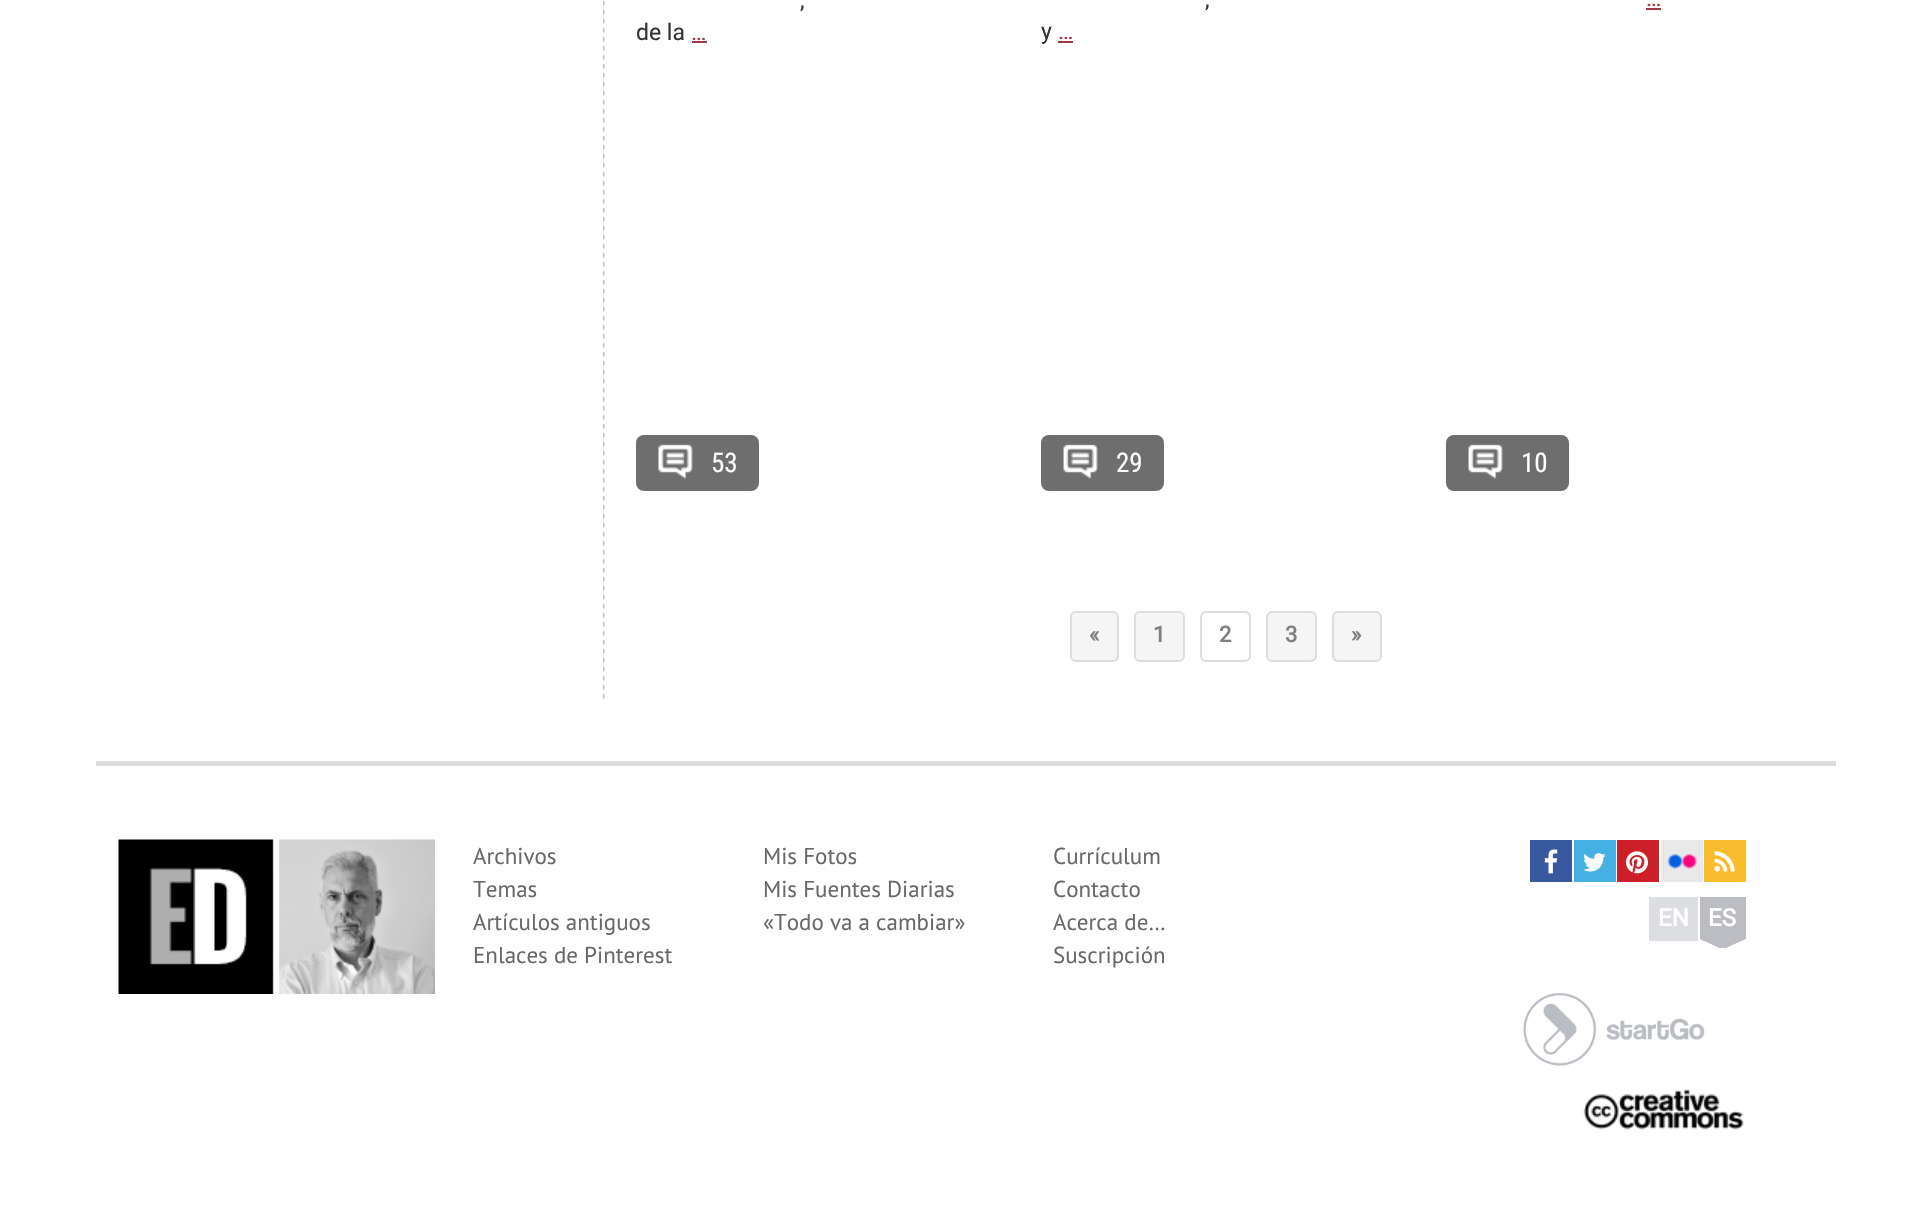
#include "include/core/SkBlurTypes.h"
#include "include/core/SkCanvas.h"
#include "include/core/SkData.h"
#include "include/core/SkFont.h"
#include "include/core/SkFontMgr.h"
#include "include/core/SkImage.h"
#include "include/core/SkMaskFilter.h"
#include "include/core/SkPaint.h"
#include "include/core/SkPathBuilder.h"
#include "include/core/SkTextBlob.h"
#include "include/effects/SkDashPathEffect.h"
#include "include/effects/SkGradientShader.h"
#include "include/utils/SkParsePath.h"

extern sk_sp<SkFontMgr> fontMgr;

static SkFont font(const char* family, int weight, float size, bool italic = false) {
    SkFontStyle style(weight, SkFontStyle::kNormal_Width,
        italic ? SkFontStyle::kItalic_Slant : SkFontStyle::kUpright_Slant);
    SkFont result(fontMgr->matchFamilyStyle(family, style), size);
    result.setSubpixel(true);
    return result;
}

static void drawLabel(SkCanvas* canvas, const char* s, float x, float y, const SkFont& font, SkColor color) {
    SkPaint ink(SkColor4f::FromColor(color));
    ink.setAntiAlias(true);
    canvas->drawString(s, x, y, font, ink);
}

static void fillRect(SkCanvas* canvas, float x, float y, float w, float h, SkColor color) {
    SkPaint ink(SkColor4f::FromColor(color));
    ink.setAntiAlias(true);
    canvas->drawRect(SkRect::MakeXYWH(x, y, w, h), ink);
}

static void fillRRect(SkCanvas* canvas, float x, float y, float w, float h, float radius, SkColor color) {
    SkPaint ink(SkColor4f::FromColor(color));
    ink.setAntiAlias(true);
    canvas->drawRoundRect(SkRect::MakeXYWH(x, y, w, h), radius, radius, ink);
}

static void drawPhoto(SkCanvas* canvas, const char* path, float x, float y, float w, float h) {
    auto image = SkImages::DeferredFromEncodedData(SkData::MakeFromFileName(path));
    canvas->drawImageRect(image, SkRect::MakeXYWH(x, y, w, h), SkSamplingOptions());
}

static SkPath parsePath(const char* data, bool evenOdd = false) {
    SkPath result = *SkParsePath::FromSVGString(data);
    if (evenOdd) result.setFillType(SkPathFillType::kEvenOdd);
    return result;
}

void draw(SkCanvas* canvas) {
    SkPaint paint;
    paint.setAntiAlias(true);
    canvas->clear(0xFFFFFFFF);
    drawPhoto(canvas, "assets/img1.png", 603, 0, 2, 699);
    SkFont font1 = font("Roboto", 400, 23);
    drawLabel(canvas, ",", 800, 8, font1, 0xFF333333);
    drawLabel(canvas, "de la", 636, 40, font1, 0xFF333333);
    drawLabel(canvas, "…", 691, 40, font1, 0xFFA23842);
    fillRect(canvas, 692, 41, 15, 2, 0xFFA23842);
    fillRRect(canvas, 636, 435, 123, 56, 8, 0xFF6E6E6E);
    drawPhoto(canvas, "assets/img2.png", 658, 444, 35, 35);
    SkFont font2 = font("Roboto Condensed", 400, 27);
    drawLabel(canvas, "53", 711, 472, font2, 0xFFFFFFFF);
    drawLabel(canvas, ",", 1205, 7, font1, 0xFF333333);
    drawLabel(canvas, "y", 1041, 39, font1, 0xFF333333);
    drawLabel(canvas, "…", 1058, 39, font1, 0xFFA23842);
    fillRect(canvas, 1058, 41, 15, 2, 0xFFA23842);
    fillRRect(canvas, 1041, 435, 123, 56, 8, 0xFF6E6E6E);
    drawPhoto(canvas, "assets/img3.png", 1063, 444, 35, 35);
    drawLabel(canvas, "29", 1116, 472, font2, 0xFFFFFFFF);
    drawLabel(canvas, "…", 1646, 6, font1, 0xFFA23842);
    fillRect(canvas, 1646, 8, 15, 2, 0xFFA23842);
    fillRRect(canvas, 1446, 435, 123, 56, 8, 0xFF6E6E6E);
    drawPhoto(canvas, "assets/img3.png", 1468, 444, 35, 35);
    drawLabel(canvas, "10", 1521, 472, font2, 0xFFFFFFFF);
    paint.setColor(0xFFF5F5F5);
    canvas->drawRoundRect(SkRect::MakeXYWH(1071, 612, 47, 49), 5, 5, paint);
    paint.setStroke(true);
    paint.setStrokeWidth(2);
    paint.setColor(0xFFDDDDDD);
    canvas->drawRoundRect(SkRect::MakeXYWH(1071, 612, 47, 49), 5, 5, paint);
    SkFont font3 = font("Roboto", 700, 22);
    drawLabel(canvas, "«", 1089, 642, font3, 0xFF808080);
    paint.setStroke(false);
    paint.setColor(0xFFF5F5F5);
    canvas->drawRoundRect(SkRect::MakeXYWH(1135, 612, 49, 49), 5, 5, paint);
    paint.setStroke(true);
    paint.setColor(0xFFDDDDDD);
    canvas->drawRoundRect(SkRect::MakeXYWH(1135, 612, 49, 49), 5, 5, paint);
    drawLabel(canvas, "1", 1153, 642, font3, 0xFF808080);
    canvas->drawRoundRect(SkRect::MakeXYWH(1201, 612, 49, 49), 5, 5, paint);
    drawLabel(canvas, "2", 1219, 642, font3, 0xFF808080);
    paint.setStroke(false);
    paint.setColor(0xFFF5F5F5);
    canvas->drawRoundRect(SkRect::MakeXYWH(1267, 612, 49, 49), 5, 5, paint);
    paint.setStroke(true);
    paint.setColor(0xFFDDDDDD);
    canvas->drawRoundRect(SkRect::MakeXYWH(1267, 612, 49, 49), 5, 5, paint);
    drawLabel(canvas, "3", 1285, 642, font3, 0xFF808080);
    paint.setStroke(false);
    paint.setColor(0xFFF5F5F5);
    canvas->drawRoundRect(SkRect::MakeXYWH(1333, 612, 48, 49), 5, 5, paint);
    paint.setStroke(true);
    paint.setColor(0xFFDDDDDD);
    canvas->drawRoundRect(SkRect::MakeXYWH(1333, 612, 48, 49), 5, 5, paint);
    drawLabel(canvas, "»", 1351, 642, font3, 0xFF808080);
    fillRect(canvas, 96, 761, 1740, 5, 0xFFDDDDDD);
    drawPhoto(canvas, "assets/img4.png", 118, 839, 317, 155);
    SkFont font4 = font("PT Sans", 400, 23);
    drawLabel(canvas, "Archivos", 473, 864, font4, 0xFF686868);
    drawLabel(canvas, "Temas", 473, 897, font4, 0xFF686868);
    drawLabel(canvas, "Artículos antiguos", 473, 930, font4, 0xFF686868);
    drawLabel(canvas, "Enlaces de Pinterest", 473, 963, font4, 0xFF686868);
    drawLabel(canvas, "Mis Fotos", 763, 864, font4, 0xFF686868);
    drawLabel(canvas, "Mis Fuentes Diarias", 763, 897, font4, 0xFF686868);
    drawLabel(canvas, "«Todo va a cambiar»", 763, 930, font4, 0xFF686868);
    drawLabel(canvas, "Currículum", 1053, 864, font4, 0xFF686868);
    drawLabel(canvas, "Contacto", 1053, 897, font4, 0xFF686868);
    drawLabel(canvas, "Acerca de…", 1053, 930, font4, 0xFF686868);
    drawLabel(canvas, "Suscripción", 1053, 963, font4, 0xFF686868);
    fillRect(canvas, 1530, 840, 42, 42, 0xFF39599F);
    drawPhoto(canvas, "assets/img5.png", 1544, 849, 14, 25);
    fillRect(canvas, 1574, 840, 42, 42, 0xFF45B0E3);
    drawPhoto(canvas, "assets/img6.png", 1583, 853, 23, 19);
    fillRect(canvas, 1617, 840, 42, 42, 0xFFCB2027);
    drawPhoto(canvas, "assets/img7.png", 1626, 851, 22, 23);
    fillRect(canvas, 1661, 840, 42, 42, 0xFFE9E9E9);
    drawPhoto(canvas, "assets/img8.png", 1667, 854, 30, 15);
    fillRect(canvas, 1704, 840, 42, 42, 0xFFF8BC2E);
    drawPhoto(canvas, "assets/img9.png", 1714, 851, 21, 21);
    fillRect(canvas, 1649, 897, 49, 44, 0xFFDDDEE1);
    SkFont font5 = font("Roboto", 700, 24);
    drawLabel(canvas, "EN", 1658, 926, font5, 0xFFFFFFFF);
    fillRect(canvas, 1700, 897, 46, 44, 0xFFBBBDC3);
    drawLabel(canvas, "ES", 1708, 926, font5, 0xFFFFFFFF);
    paint.setStroke(false);
    paint.setColor(0xFFBBBDC3);
    canvas->drawPath(parsePath("M1700 939H1746L1726 948H1719Z"), paint);
    paint.setColor(0xFFFFFFFF);
    canvas->drawPath(parsePath("M1746 939V957L1726.5 948ZM1699.5 957V939L1719 948Z"), paint);
    drawPhoto(canvas, "assets/img10.png", 1523, 993, 182, 73);
    drawPhoto(canvas, "assets/img11.png", 1583, 1089, 161, 41);
}
